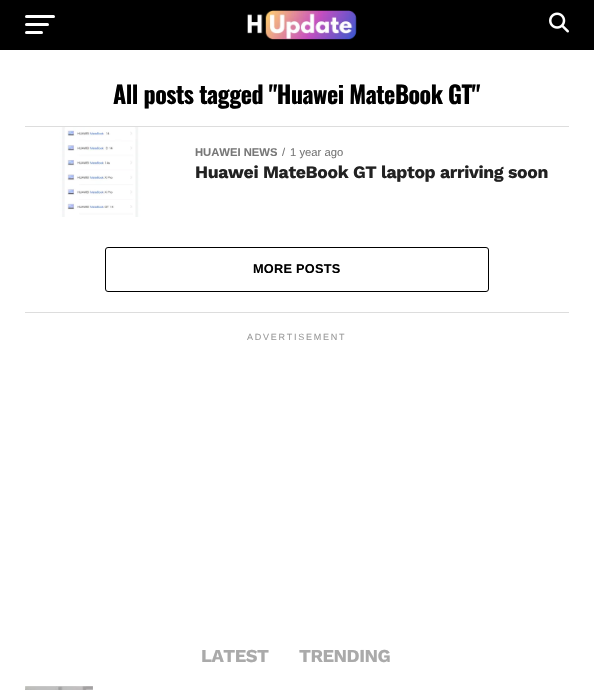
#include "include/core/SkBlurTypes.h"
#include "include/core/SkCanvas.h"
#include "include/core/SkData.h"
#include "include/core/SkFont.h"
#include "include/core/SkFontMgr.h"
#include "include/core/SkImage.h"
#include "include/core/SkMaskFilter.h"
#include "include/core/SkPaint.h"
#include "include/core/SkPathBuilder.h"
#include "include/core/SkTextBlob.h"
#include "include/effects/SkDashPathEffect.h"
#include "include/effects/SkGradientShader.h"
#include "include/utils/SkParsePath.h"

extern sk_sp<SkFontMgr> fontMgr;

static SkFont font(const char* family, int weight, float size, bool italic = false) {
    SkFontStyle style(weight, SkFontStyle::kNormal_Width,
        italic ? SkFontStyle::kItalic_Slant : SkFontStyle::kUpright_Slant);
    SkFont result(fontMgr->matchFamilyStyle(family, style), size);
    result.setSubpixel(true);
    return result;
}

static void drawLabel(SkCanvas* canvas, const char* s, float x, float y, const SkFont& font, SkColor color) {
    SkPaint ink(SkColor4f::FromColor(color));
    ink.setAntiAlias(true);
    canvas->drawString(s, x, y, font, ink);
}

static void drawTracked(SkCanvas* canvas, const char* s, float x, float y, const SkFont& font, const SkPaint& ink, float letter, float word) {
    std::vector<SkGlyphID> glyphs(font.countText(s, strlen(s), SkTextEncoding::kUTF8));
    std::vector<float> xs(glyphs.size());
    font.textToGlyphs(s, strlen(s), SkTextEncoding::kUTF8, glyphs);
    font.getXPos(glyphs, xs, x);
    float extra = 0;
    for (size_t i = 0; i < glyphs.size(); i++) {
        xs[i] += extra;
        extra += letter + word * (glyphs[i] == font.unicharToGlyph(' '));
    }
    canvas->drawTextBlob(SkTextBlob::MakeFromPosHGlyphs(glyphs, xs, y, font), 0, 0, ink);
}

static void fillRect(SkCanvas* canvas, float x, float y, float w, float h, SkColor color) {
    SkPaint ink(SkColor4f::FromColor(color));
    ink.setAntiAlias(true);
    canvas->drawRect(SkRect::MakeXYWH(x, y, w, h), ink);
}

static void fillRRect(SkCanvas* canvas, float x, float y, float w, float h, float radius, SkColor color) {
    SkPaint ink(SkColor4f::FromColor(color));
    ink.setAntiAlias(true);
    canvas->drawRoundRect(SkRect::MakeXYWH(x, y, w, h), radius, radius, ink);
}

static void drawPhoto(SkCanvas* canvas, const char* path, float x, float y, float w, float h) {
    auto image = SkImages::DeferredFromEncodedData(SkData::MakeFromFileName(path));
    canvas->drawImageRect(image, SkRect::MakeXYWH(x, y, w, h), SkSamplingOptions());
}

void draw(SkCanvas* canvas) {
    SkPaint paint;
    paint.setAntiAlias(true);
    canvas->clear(0xFFFFFFFF);
    fillRect(canvas, 0, 0, 594, 50, 0xFF000000);
    fillRRect(canvas, 25, 15, 30, 3, 1.5f, 0xFFFFFFFF);
    fillRRect(canvas, 25, 23, 24, 3, 1.5f, 0xFFFFFFFF);
    fillRRect(canvas, 25, 31, 18, 3, 1.5f, 0xFFFFFFFF);
    drawPhoto(canvas, "assets/img1.png", 247, 10, 110, 30);
    drawPhoto(canvas, "assets/img2.png", 549, 12, 20, 21);
    SkFont font1 = font("Oswald", 700, 24);
    paint.setColor(0xFF000000);
    drawTracked(canvas, "All posts tagged \"Huawei MateBook GT\"", 113, 104, font1, paint, -0.5f, 0);
    fillRect(canvas, 25, 126, 544, 1, 0xFFDDDDDD);
    drawPhoto(canvas, "assets/img3.png", 25, 127, 150, 90);
    SkFont font2 = font("Liberation Sans", 700, 11.25f);
    drawLabel(canvas, "HUAWEI NEWS", 195, 156, font2, 0xFF777777);
    SkFont font3 = font("Liberation Sans", 400, 11.25f);
    drawLabel(canvas, "/", 282, 156, font3, 0xFF777777);
    drawLabel(canvas, "1 year ago", 290, 156, font3, 0xFF777777);
    SkFont font4 = font("Work Sans", 700, 17.6f);
    paint.setColor(0xFF222222);
    drawTracked(canvas, "Huawei MateBook GT laptop arriving soon", 195, 178, font4, paint, -0.35f, 0);
    paint.setStroke(true);
    paint.setStrokeWidth(1);
    paint.setColor(0xFF000000);
    canvas->drawRoundRect(SkRect::MakeXYWH(105.5f, 247.5f, 383, 44), 2.5f, 2.5f, paint);
    SkFont font5 = font("Liberation Sans", 700, 12.75f);
    paint.setStroke(false);
    drawTracked(canvas, "MORE POSTS", 253, 273, font5, paint, 0.25f, 0);
    fillRect(canvas, 25, 312, 544, 1, 0xFFDDDDDD);
    SkFont font6 = font("Liberation Sans", 400, 9);
    paint.setColor(0xFF999999);
    drawTracked(canvas, "ADVERTISEMENT", 247, 340, font6, paint, 1.75f, 0);
    SkFont font7 = font("Work Sans", 700, 18.25f);
    paint.setColor(0xFFAAAAAA);
    drawTracked(canvas, "LATEST", 201, 662, font7, paint, -0.5f, 0);
    drawTracked(canvas, "TRENDING", 299, 662, font7, paint, -0.5f, 0);
    drawPhoto(canvas, "assets/img4.png", 25, 686, 68, 4);
}
